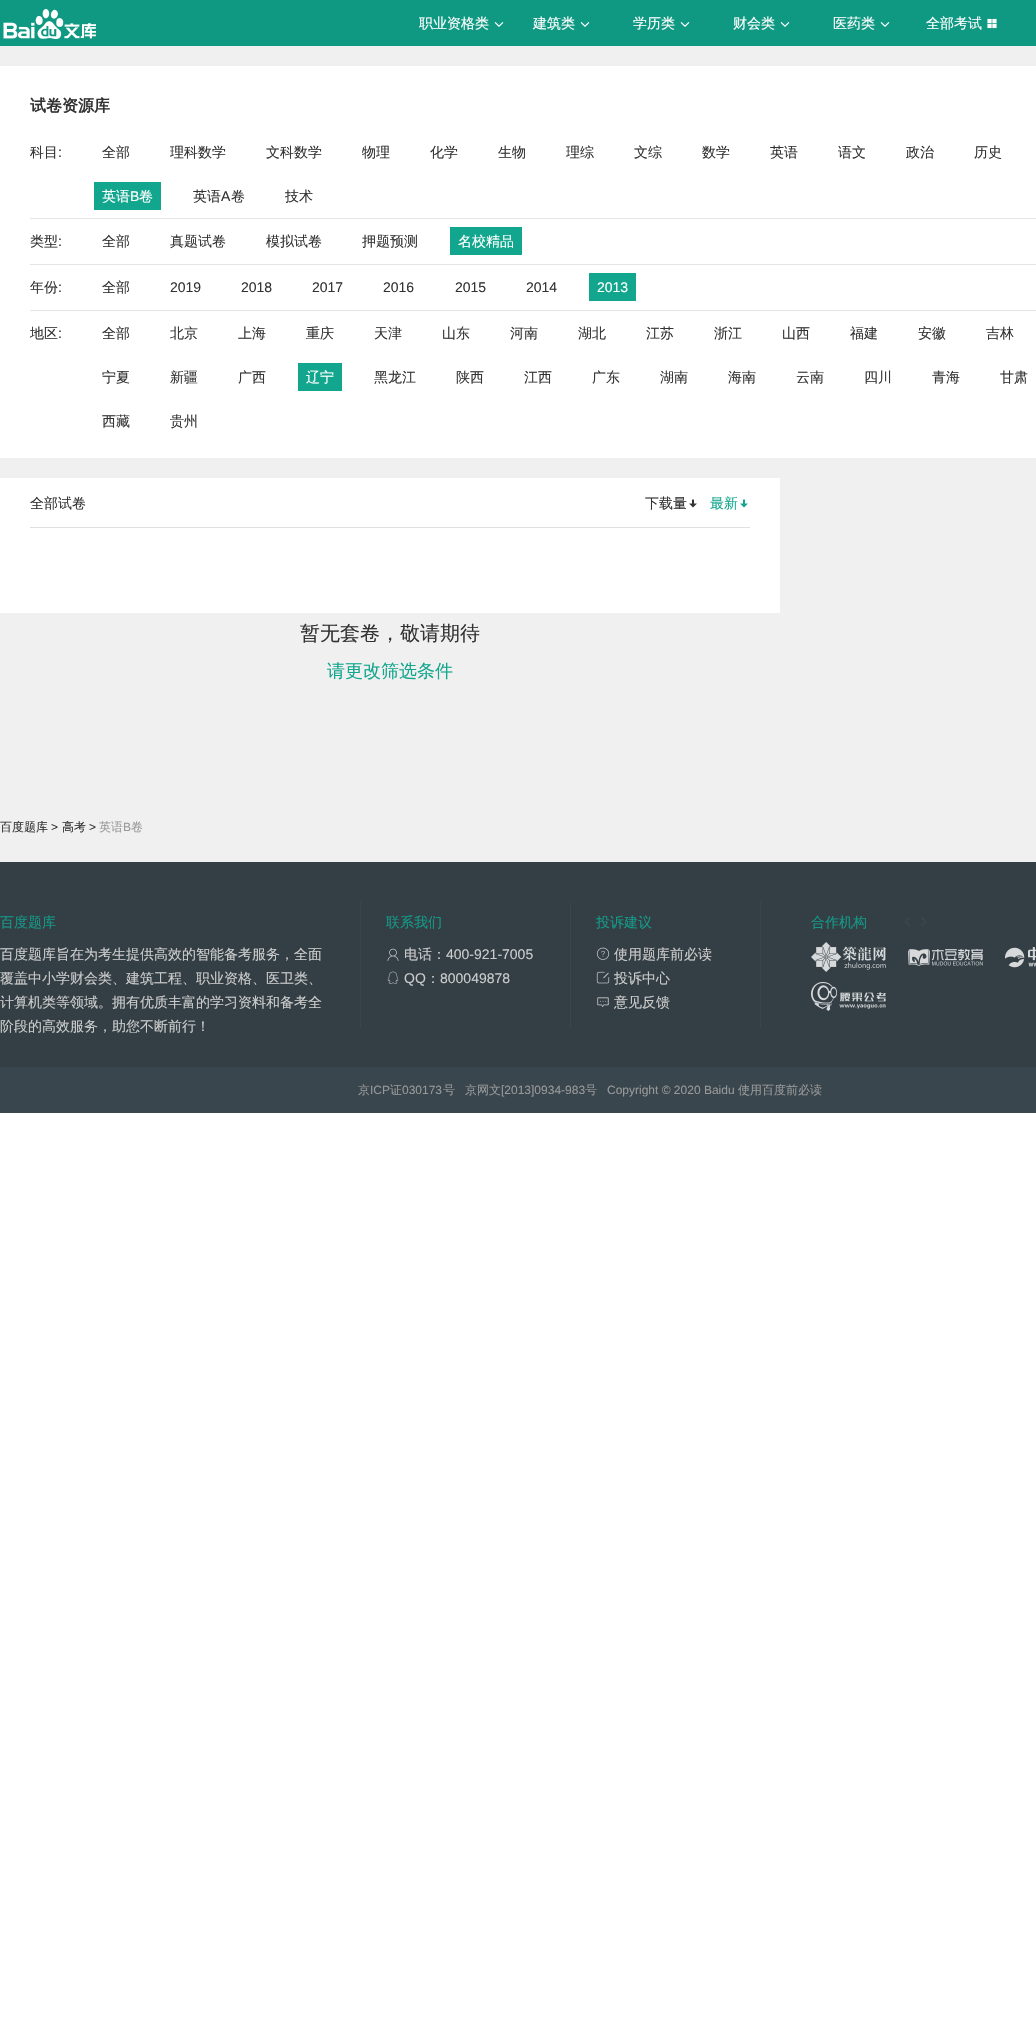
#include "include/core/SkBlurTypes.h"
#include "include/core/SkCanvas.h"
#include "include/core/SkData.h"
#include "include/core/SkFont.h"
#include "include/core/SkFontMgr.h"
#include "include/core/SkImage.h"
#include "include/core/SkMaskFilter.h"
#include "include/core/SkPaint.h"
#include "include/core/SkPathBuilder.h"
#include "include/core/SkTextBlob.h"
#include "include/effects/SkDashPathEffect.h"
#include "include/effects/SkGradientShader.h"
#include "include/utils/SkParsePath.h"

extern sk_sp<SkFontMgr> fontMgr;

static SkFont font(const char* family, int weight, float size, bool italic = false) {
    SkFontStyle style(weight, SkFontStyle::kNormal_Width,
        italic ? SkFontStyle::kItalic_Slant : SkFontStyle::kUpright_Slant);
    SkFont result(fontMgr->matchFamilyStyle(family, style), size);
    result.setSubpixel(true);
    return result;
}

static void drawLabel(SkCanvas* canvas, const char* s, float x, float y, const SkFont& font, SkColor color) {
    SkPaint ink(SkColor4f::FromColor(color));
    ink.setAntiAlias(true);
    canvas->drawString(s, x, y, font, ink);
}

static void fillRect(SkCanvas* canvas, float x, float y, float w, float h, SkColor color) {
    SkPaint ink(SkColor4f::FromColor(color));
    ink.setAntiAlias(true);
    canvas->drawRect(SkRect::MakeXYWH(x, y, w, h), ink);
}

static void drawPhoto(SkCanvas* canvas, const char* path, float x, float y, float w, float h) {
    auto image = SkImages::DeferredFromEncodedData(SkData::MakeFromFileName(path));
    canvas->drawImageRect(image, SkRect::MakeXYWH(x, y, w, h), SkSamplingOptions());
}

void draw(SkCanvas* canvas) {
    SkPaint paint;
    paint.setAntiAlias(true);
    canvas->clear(0xFFFFFFFF);
    fillRect(canvas, 0, 0, 1036, 46, 0xFF0F9982);
    drawPhoto(canvas, "assets/img1.png", 3, 9, 93, 30);
    SkFont font1 = font("WenQuanYi Zen Hei", 500, 14);
    drawLabel(canvas, "职业资格类", 419, 28, font1, 0xFFFFFFFF);
    drawPhoto(canvas, "assets/img2.png", 494, 22, 10, 5);
    drawLabel(canvas, "建筑类", 533, 28, font1, 0xFFFFFFFF);
    drawPhoto(canvas, "assets/img2.png", 580, 22, 10, 5);
    drawLabel(canvas, "学历类", 633, 28, font1, 0xFFFFFFFF);
    drawPhoto(canvas, "assets/img2.png", 680, 22, 10, 5);
    drawLabel(canvas, "财会类", 733, 28, font1, 0xFFFFFFFF);
    drawPhoto(canvas, "assets/img2.png", 780, 22, 10, 5);
    drawLabel(canvas, "医药类", 833, 28, font1, 0xFFFFFFFF);
    drawPhoto(canvas, "assets/img2.png", 880, 22, 10, 5);
    drawLabel(canvas, "全部考试", 926, 28, font1, 0xFFFFFFFF);
    drawPhoto(canvas, "assets/img3.png", 987, 18, 10, 11);
    fillRect(canvas, 0, 46, 1036, 816, 0xFFF0F0F0);
    fillRect(canvas, 0, 66, 1036, 392, 0xFFFFFFFF);
    SkFont font2 = font("WenQuanYi Zen Hei", 700, 16);
    drawLabel(canvas, "试卷资源库", 30, 111, font2, 0xFF333333);
    fillRect(canvas, 30, 218, 1006, 1, 0xFFE5E5E5);
    drawLabel(canvas, "科目", 30, 157, font1, 0xFF333333);
    SkFont font3 = font("Liberation Sans", 400, 14);
    drawLabel(canvas, ":", 58, 157, font3, 0xFF333333);
    drawLabel(canvas, "全部", 102, 157, font1, 0xFF333333);
    drawLabel(canvas, "理科数学", 170, 157, font1, 0xFF333333);
    drawLabel(canvas, "文科数学", 266, 157, font1, 0xFF333333);
    drawLabel(canvas, "物理", 362, 157, font1, 0xFF333333);
    drawLabel(canvas, "化学", 430, 157, font1, 0xFF333333);
    drawLabel(canvas, "生物", 498, 157, font1, 0xFF333333);
    drawLabel(canvas, "理综", 566, 157, font1, 0xFF333333);
    drawLabel(canvas, "文综", 634, 157, font1, 0xFF333333);
    drawLabel(canvas, "数学", 702, 157, font1, 0xFF333333);
    drawLabel(canvas, "英语", 770, 157, font1, 0xFF333333);
    drawLabel(canvas, "语文", 838, 157, font1, 0xFF333333);
    drawLabel(canvas, "政治", 906, 157, font1, 0xFF333333);
    drawLabel(canvas, "历史", 974, 157, font1, 0xFF333333);
    fillRect(canvas, 94, 182, 67, 28, 0xFF11A68D);
    drawLabel(canvas, "英语", 102, 201, font1, 0xFFFFFFFF);
    drawLabel(canvas, "B", 130, 201, font3, 0xFFFFFFFF);
    drawLabel(canvas, "卷", 139, 201, font1, 0xFFFFFFFF);
    drawLabel(canvas, "英语", 193, 201, font1, 0xFF333333);
    drawLabel(canvas, "A", 221, 201, font3, 0xFF333333);
    drawLabel(canvas, "卷", 231, 201, font1, 0xFF333333);
    drawLabel(canvas, "技术", 285, 201, font1, 0xFF333333);
    fillRect(canvas, 30, 264, 1006, 1, 0xFFE5E5E5);
    drawLabel(canvas, "类型", 30, 246, font1, 0xFF333333);
    drawLabel(canvas, ":", 58, 246, font3, 0xFF333333);
    drawLabel(canvas, "全部", 102, 246, font1, 0xFF333333);
    drawLabel(canvas, "真题试卷", 170, 246, font1, 0xFF333333);
    drawLabel(canvas, "模拟试卷", 266, 246, font1, 0xFF333333);
    drawLabel(canvas, "押题预测", 362, 246, font1, 0xFF333333);
    fillRect(canvas, 450, 227, 72, 28, 0xFF11A68D);
    drawLabel(canvas, "名校精品", 458, 246, font1, 0xFFFFFFFF);
    fillRect(canvas, 30, 310, 1006, 1, 0xFFE5E5E5);
    drawLabel(canvas, "年份", 30, 292, font1, 0xFF333333);
    drawLabel(canvas, ":", 58, 292, font3, 0xFF333333);
    drawLabel(canvas, "全部", 102, 292, font1, 0xFF333333);
    drawLabel(canvas, "2019", 170, 292, font3, 0xFF333333);
    drawLabel(canvas, "2018", 241, 292, font3, 0xFF333333);
    drawLabel(canvas, "2017", 312, 292, font3, 0xFF333333);
    drawLabel(canvas, "2016", 383, 292, font3, 0xFF333333);
    drawLabel(canvas, "2015", 455, 292, font3, 0xFF333333);
    drawLabel(canvas, "2014", 526, 292, font3, 0xFF333333);
    fillRect(canvas, 589, 273, 47, 28, 0xFF11A68D);
    drawLabel(canvas, "2013", 597, 292, font3, 0xFFFFFFFF);
    drawLabel(canvas, "地区", 30, 338, font1, 0xFF333333);
    drawLabel(canvas, ":", 58, 338, font3, 0xFF333333);
    drawLabel(canvas, "全部", 102, 338, font1, 0xFF333333);
    drawLabel(canvas, "北京", 170, 338, font1, 0xFF333333);
    drawLabel(canvas, "上海", 238, 338, font1, 0xFF333333);
    drawLabel(canvas, "重庆", 306, 338, font1, 0xFF333333);
    drawLabel(canvas, "天津", 374, 338, font1, 0xFF333333);
    drawLabel(canvas, "山东", 442, 338, font1, 0xFF333333);
    drawLabel(canvas, "河南", 510, 338, font1, 0xFF333333);
    drawLabel(canvas, "湖北", 578, 338, font1, 0xFF333333);
    drawLabel(canvas, "江苏", 646, 338, font1, 0xFF333333);
    drawLabel(canvas, "浙江", 714, 338, font1, 0xFF333333);
    drawLabel(canvas, "山西", 782, 338, font1, 0xFF333333);
    drawLabel(canvas, "福建", 850, 338, font1, 0xFF333333);
    drawLabel(canvas, "安徽", 918, 338, font1, 0xFF333333);
    drawLabel(canvas, "吉林", 986, 338, font1, 0xFF333333);
    drawLabel(canvas, "宁夏", 102, 382, font1, 0xFF333333);
    drawLabel(canvas, "新疆", 170, 382, font1, 0xFF333333);
    drawLabel(canvas, "广西", 238, 382, font1, 0xFF333333);
    fillRect(canvas, 298, 363, 44, 28, 0xFF11A68D);
    drawLabel(canvas, "辽宁", 306, 382, font1, 0xFFFFFFFF);
    drawLabel(canvas, "黑龙江", 374, 382, font1, 0xFF333333);
    drawLabel(canvas, "陕西", 456, 382, font1, 0xFF333333);
    drawLabel(canvas, "江西", 524, 382, font1, 0xFF333333);
    drawLabel(canvas, "广东", 592, 382, font1, 0xFF333333);
    drawLabel(canvas, "湖南", 660, 382, font1, 0xFF333333);
    drawLabel(canvas, "海南", 728, 382, font1, 0xFF333333);
    drawLabel(canvas, "云南", 796, 382, font1, 0xFF333333);
    drawLabel(canvas, "四川", 864, 382, font1, 0xFF333333);
    drawLabel(canvas, "青海", 932, 382, font1, 0xFF333333);
    drawLabel(canvas, "甘肃", 1000, 382, font1, 0xFF333333);
    drawLabel(canvas, "西藏", 102, 426, font1, 0xFF333333);
    drawLabel(canvas, "贵州", 170, 426, font1, 0xFF333333);
    fillRect(canvas, 0, 478, 780, 135, 0xFFFFFFFF);
    fillRect(canvas, 30, 527, 720, 1, 0xFFE0E0E0);
    drawLabel(canvas, "全部试卷", 30, 508, font1, 0xFF333333);
    drawLabel(canvas, "下载量", 645, 508, font1, 0xFF333333);
    drawPhoto(canvas, "assets/img4.png", 689, 499, 8, 9);
    drawLabel(canvas, "最新", 710, 508, font1, 0xFF11A68D);
    drawPhoto(canvas, "assets/img5.png", 740, 499, 8, 9);
    SkFont font4 = font("WenQuanYi Zen Hei", 500, 20);
    drawLabel(canvas, "暂无套卷，敬请期待", 300, 640, font4, 0xFF333333);
    SkFont font5 = font("WenQuanYi Zen Hei", 500, 18);
    drawLabel(canvas, "请更改筛选条件", 327, 677, font5, 0xFF11A68D);
    SkFont font6 = font("WenQuanYi Zen Hei", 500, 12);
    drawLabel(canvas, "百度题库", 0, 831, font6, 0xFF333333);
    SkFont font7 = font("Liberation Sans", 400, 12);
    drawLabel(canvas, ">", 51, 831, font7, 0xFF333333);
    drawLabel(canvas, "高考", 62, 831, font6, 0xFF333333);
    drawLabel(canvas, ">", 89, 831, font7, 0xFF333333);
    drawLabel(canvas, "英语", 99, 831, font6, 0xFF999999);
    drawLabel(canvas, "B", 123, 831, font7, 0xFF999999);
    drawLabel(canvas, "卷", 131, 831, font6, 0xFF999999);
    fillRect(canvas, 0, 862, 1036, 205, 0xFF343F45);
    fillRect(canvas, 360, 902, 1, 125, 0xFF39464D);
    drawLabel(canvas, "百度题库", 0, 927, font1, 0xFF149987);
    drawLabel(canvas, "百度题库旨在为考生提供高效的智能备考服务，全面", 0, 959, font1, 0xFFCCCCCC);
    drawLabel(canvas, "覆盖中小学财会类、建筑工程、职业资格、医卫类、", 0, 983, font1, 0xFFCCCCCC);
    drawLabel(canvas, "计算机类等领域。拥有优质丰富的学习资料和备考全", 0, 1007, font1, 0xFFCCCCCC);
    drawLabel(canvas, "阶段的高效服务，助您不断前行！", 0, 1031, font1, 0xFFCCCCCC);
    fillRect(canvas, 570, 902, 1, 125, 0xFF39464D);
    drawLabel(canvas, "联系我们", 386, 927, font1, 0xFF149987);
    drawPhoto(canvas, "assets/img6.png", 387, 948, 12, 13);
    drawLabel(canvas, "电话：", 404, 959, font1, 0xFFCCCCCC);
    drawLabel(canvas, "400-921-7005", 446, 959, font3, 0xFFCCCCCC);
    drawPhoto(canvas, "assets/img7.png", 387, 971, 12, 13);
    drawLabel(canvas, "QQ", 404, 983, font3, 0xFFCCCCCC);
    drawLabel(canvas, "：", 426, 983, font1, 0xFFCCCCCC);
    drawLabel(canvas, "800049878", 440, 983, font3, 0xFFCCCCCC);
    fillRect(canvas, 760, 902, 1, 125, 0xFF39464D);
    drawLabel(canvas, "投诉建议", 596, 927, font1, 0xFF149987);
    drawPhoto(canvas, "assets/img8.png", 596, 947, 14, 13);
    drawLabel(canvas, "使用题库前必读", 614, 959, font1, 0xFFCCCCCC);
    drawPhoto(canvas, "assets/img9.png", 596, 971, 14, 13);
    drawLabel(canvas, "投诉中心", 614, 983, font1, 0xFFCCCCCC);
    drawPhoto(canvas, "assets/img10.png", 597, 997, 12, 10);
    drawLabel(canvas, "意见反馈", 614, 1007, font1, 0xFFCCCCCC);
    drawLabel(canvas, "合作机构", 811, 927, font1, 0xFF149987);
    drawPhoto(canvas, "assets/img11.png", 905, 917, 6, 10);
    drawPhoto(canvas, "assets/img12.png", 921, 917, 5, 10);
    drawPhoto(canvas, "assets/img13.png", 811, 942, 75, 30);
    drawPhoto(canvas, "assets/img14.png", 908, 949, 75, 17);
    drawPhoto(canvas, "assets/img15.png", 1005, 947, 31, 21);
    drawPhoto(canvas, "assets/img16.png", 811, 982, 75, 29);
    fillRect(canvas, 0, 1067, 1036, 46, 0xFF39464D);
    drawLabel(canvas, "京", 358, 1094, font6, 0xFF999999);
    drawLabel(canvas, "ICP", 370, 1094, font7, 0xFF999999);
    drawLabel(canvas, "证", 390, 1094, font6, 0xFF999999);
    drawLabel(canvas, "030173", 402, 1094, font7, 0xFF999999);
    drawLabel(canvas, "号", 443, 1094, font6, 0xFF999999);
    drawLabel(canvas, "京网文", 465, 1094, font6, 0xFF999999);
    drawLabel(canvas, "[2013]0934-983", 501, 1094, font7, 0xFF999999);
    drawLabel(canvas, "号", 585, 1094, font6, 0xFF999999);
    drawLabel(canvas, "Copyright © 2020 Baidu", 607, 1094, font7, 0xFF999999);
    drawLabel(canvas, "使用百度前必读", 738, 1094, font6, 0xFF999999);
}
